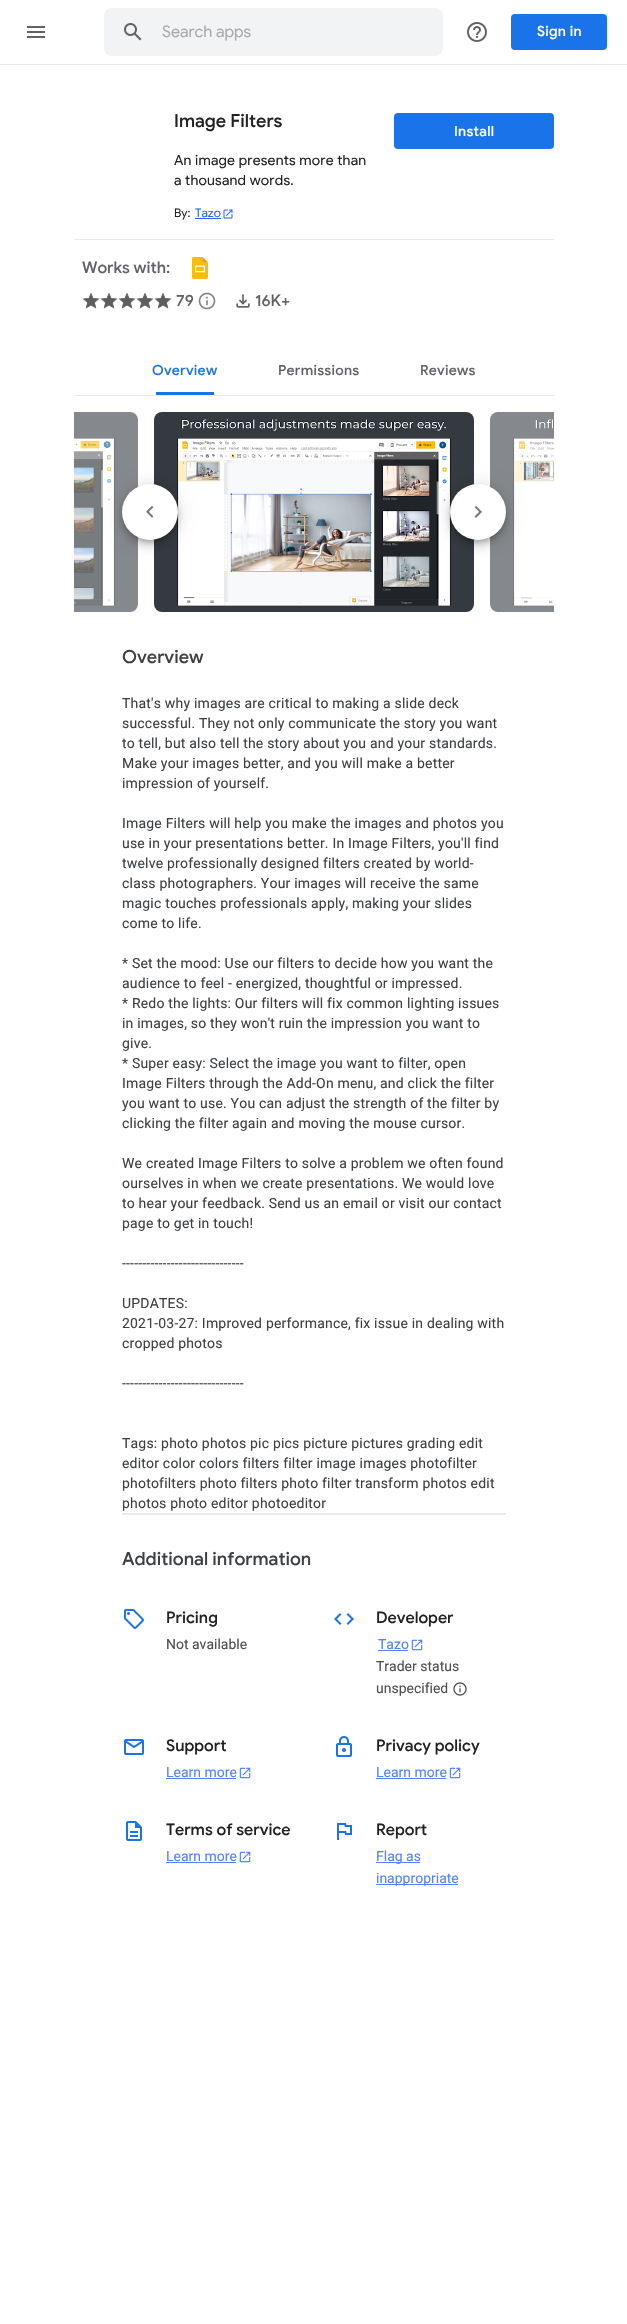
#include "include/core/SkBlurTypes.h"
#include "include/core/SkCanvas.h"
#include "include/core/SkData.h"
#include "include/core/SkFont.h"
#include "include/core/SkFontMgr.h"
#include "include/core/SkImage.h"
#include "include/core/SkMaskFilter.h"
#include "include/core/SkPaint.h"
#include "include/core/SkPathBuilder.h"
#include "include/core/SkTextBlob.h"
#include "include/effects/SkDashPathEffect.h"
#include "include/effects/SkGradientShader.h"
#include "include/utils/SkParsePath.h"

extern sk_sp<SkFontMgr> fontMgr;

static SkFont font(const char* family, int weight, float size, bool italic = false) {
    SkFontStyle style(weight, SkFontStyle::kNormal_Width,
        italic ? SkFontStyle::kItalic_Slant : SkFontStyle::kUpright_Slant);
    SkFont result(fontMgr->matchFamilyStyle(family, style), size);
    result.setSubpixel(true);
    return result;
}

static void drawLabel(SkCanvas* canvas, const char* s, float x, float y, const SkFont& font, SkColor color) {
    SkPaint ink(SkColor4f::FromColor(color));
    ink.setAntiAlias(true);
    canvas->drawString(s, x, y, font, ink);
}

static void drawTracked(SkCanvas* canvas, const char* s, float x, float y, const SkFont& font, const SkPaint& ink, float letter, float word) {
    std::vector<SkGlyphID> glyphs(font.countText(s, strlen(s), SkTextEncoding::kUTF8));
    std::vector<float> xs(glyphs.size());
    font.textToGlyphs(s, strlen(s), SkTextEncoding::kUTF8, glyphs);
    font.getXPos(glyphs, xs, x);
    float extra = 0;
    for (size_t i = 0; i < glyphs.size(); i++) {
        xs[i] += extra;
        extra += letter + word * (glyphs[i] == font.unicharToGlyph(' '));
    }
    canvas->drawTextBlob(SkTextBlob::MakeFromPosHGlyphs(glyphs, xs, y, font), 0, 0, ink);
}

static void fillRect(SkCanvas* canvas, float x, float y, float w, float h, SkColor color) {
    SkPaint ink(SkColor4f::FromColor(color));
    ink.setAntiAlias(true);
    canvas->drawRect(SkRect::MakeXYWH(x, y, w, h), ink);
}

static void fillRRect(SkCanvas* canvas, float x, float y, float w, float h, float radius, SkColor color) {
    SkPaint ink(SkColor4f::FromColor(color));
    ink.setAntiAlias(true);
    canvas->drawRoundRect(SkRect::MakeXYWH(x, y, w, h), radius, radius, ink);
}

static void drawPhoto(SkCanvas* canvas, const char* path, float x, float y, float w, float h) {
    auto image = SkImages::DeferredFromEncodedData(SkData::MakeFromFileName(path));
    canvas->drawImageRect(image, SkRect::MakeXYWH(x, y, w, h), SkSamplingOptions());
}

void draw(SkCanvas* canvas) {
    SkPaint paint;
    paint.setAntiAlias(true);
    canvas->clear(0xFFFFFFFF);
    fillRect(canvas, 0, 64, 627, 1, 0xFFE8EAED);
    drawPhoto(canvas, "assets/img1.png", 27, 26, 18, 12);
    fillRRect(canvas, 104, 8, 339, 48, 8, 0xFFF1F3F4);
    drawPhoto(canvas, "assets/img2.png", 124, 23, 18, 18);
    SkFont font1 = font("Google Sans", 400, 16);
    drawLabel(canvas, "Search apps", 162, 37, font1, 0xFFA9AAAB);
    drawPhoto(canvas, "assets/img3.png", 467, 22, 20, 20);
    fillRRect(canvas, 511, 14, 96, 36, 4, 0xFF1A73E8);
    SkFont font2 = font("Google Sans", 500, 14);
    paint.setColor(0xFFFFFFFF);
    drawTracked(canvas, "Sign in", 537, 36, font2, paint, 0.25f, 0);
    SkFont font3 = font("Google Sans", 500, 18);
    drawLabel(canvas, "Image Filters", 174, 127, font3, 0xFF212121);
    SkFont font4 = font("Google Sans", 400, 14);
    paint.setColor(0xFF212121);
    drawTracked(canvas, "An image presents more than", 174, 165, font4, paint, 0.2f, 0);
    drawTracked(canvas, "a thousand words.", 174, 185, font4, paint, 0.2f, 0);
    SkFont font5 = font("Google Sans", 400, 12);
    drawLabel(canvas, "By:", 174, 217, font5, 0xFF212121);
    drawLabel(canvas, "Tazo", 195, 217, font5, 0xFF2962FF);
    fillRect(canvas, 195, 218, 26, 1, 0xFF2962FF);
    drawPhoto(canvas, "assets/img4.png", 223, 209, 10, 10);
    fillRRect(canvas, 394, 113, 160, 36, 4, 0xFF1A73E8);
    paint.setColor(0xFFFFFFFF);
    drawTracked(canvas, "Install", 454, 136, font2, paint, 0.25f, 0);
    fillRect(canvas, 74, 239, 480, 1, 0xFFE8EAED);
    SkFont font6 = font("Google Sans", 500, 16);
    drawLabel(canvas, "Works with:", 82, 273, font6, 0xFF5F6368);
    drawPhoto(canvas, "assets/img5.png", 192, 257, 16, 22);
    drawPhoto(canvas, "assets/img6.png", 82, 292, 18, 17);
    drawPhoto(canvas, "assets/img6.png", 100, 292, 18, 17);
    drawPhoto(canvas, "assets/img6.png", 118, 292, 18, 17);
    drawPhoto(canvas, "assets/img6.png", 136, 292, 18, 17);
    drawPhoto(canvas, "assets/img7.png", 154, 292, 18, 17);
    drawLabel(canvas, "79", 176, 306, font6, 0xFF5F6368);
    drawPhoto(canvas, "assets/img8.png", 198, 292, 18, 18);
    drawPhoto(canvas, "assets/img9.png", 236, 294, 14, 14);
    drawLabel(canvas, "16K+", 255, 306, font6, 0xFF5F6368);
    paint.setColor(0xFF1A73E8);
    drawTracked(canvas, "Overview", 152, 375, font2, paint, 0.25f, 0);
    fillRect(canvas, 156, 392, 58, 3, 0xFF1A73E8);
    paint.setColor(0xFF5F6368);
    drawTracked(canvas, "Permissions", 278, 375, font2, paint, 0.25f, 0);
    drawTracked(canvas, "Reviews", 420, 375, font2, paint, 0.25f, 0);
    fillRect(canvas, 74, 395, 480, 1, 0xFFE8EAED);
    drawPhoto(canvas, "assets/img10.png", 74, 412, 64, 200);
    drawPhoto(canvas, "assets/img11.png", 154, 412, 320, 200);
    drawPhoto(canvas, "assets/img12.png", 490, 412, 64, 200);
    paint.setColor(0x33000000);
    paint.setMaskFilter(SkMaskFilter::MakeBlur(kNormal_SkBlurStyle, 2.5f));
    canvas->drawRoundRect(SkRect::MakeXYWH(123, 488, 54, 54), 27, 27, paint);
    paint.setMaskFilter(nullptr);
    paint.setColor(0x1F000000);
    paint.setMaskFilter(SkMaskFilter::MakeBlur(kNormal_SkBlurStyle, 9));
    canvas->drawRoundRect(SkRect::MakeXYWH(122, 485, 56, 56), 28, 28, paint);
    paint.setMaskFilter(nullptr);
    paint.setColor(0x24000000);
    paint.setMaskFilter(SkMaskFilter::MakeBlur(kNormal_SkBlurStyle, 5));
    canvas->drawRoundRect(SkRect::MakeXYWH(122, 490, 56, 56), 28, 28, paint);
    paint.setMaskFilter(nullptr);
    paint.setColor(0xFFFFFFFF);
    canvas->drawCircle(150, 512, 28, paint);
    drawPhoto(canvas, "assets/img13.png", 146, 505, 8, 13);
    paint.setColor(0x33000000);
    paint.setMaskFilter(SkMaskFilter::MakeBlur(kNormal_SkBlurStyle, 2.5f));
    canvas->drawRoundRect(SkRect::MakeXYWH(451, 488, 54, 54), 27, 27, paint);
    paint.setMaskFilter(nullptr);
    paint.setColor(0x1F000000);
    paint.setMaskFilter(SkMaskFilter::MakeBlur(kNormal_SkBlurStyle, 9));
    canvas->drawRoundRect(SkRect::MakeXYWH(450, 485, 56, 56), 28, 28, paint);
    paint.setMaskFilter(nullptr);
    paint.setColor(0x24000000);
    paint.setMaskFilter(SkMaskFilter::MakeBlur(kNormal_SkBlurStyle, 5));
    canvas->drawRoundRect(SkRect::MakeXYWH(450, 490, 56, 56), 28, 28, paint);
    paint.setMaskFilter(nullptr);
    paint.setColor(0xFFFFFFFF);
    canvas->drawCircle(478, 512, 28, paint);
    drawPhoto(canvas, "assets/img14.png", 474, 506, 8, 12);
    drawLabel(canvas, "Overview", 122, 663, font3, 0xFF3C4043);
    SkFont font7 = font("Roboto", 400, 14);
    paint.setColor(0xFF3C4043);
    drawTracked(canvas, "That's why images are critical to making a slide deck", 122, 708, font7, paint, 0.2f, 0);
    drawTracked(canvas, "successful. They not only communicate the story you want", 122, 728, font7, paint, 0.2f, 0);
    drawTracked(canvas, "to tell, but also tell the story about you and your standards.", 122, 748, font7, paint, 0.2f, 0);
    drawTracked(canvas, "Make your images better, and you will make a better", 122, 768, font7, paint, 0.2f, 0);
    drawTracked(canvas, "impression of yourself.", 122, 788, font7, paint, 0.2f, 0);
    drawTracked(canvas, "Image Filters will help you make the images and photos you", 122, 828, font7, paint, 0.2f, 0);
    drawTracked(canvas, "use in your presentations better. In Image Filters, you'll find", 122, 848, font7, paint, 0.2f, 0);
    drawTracked(canvas, "twelve professionally designed filters created by world-", 122, 868, font7, paint, 0.2f, 0);
    drawTracked(canvas, "class photographers. Your images will receive the same", 122, 888, font7, paint, 0.2f, 0);
    drawTracked(canvas, "magic touches professionals apply, making your slides", 122, 908, font7, paint, 0.2f, 0);
    drawTracked(canvas, "come to life.", 122, 928, font7, paint, 0.2f, 0);
    drawTracked(canvas, "* Set the mood: Use our filters to decide how you want the", 122, 968, font7, paint, 0.2f, 0);
    drawTracked(canvas, "audience to feel - energized, thoughtful or impressed.", 122, 988, font7, paint, 0.2f, 0);
    drawTracked(canvas, "* Redo the lights: Our filters will fix common lighting issues", 122, 1008, font7, paint, 0.2f, 0);
    drawTracked(canvas, "in images, so they won't ruin the impression you want to", 122, 1028, font7, paint, 0.2f, 0);
    drawTracked(canvas, "give.", 122, 1048, font7, paint, 0.2f, 0);
    drawTracked(canvas, "* Super easy: Select the image you want to filter, open", 122, 1068, font7, paint, 0.2f, 0);
    drawTracked(canvas, "Image Filters through the Add-On menu, and click the filter", 122, 1088, font7, paint, 0.2f, 0);
    drawTracked(canvas, "you want to use. You can adjust the strength of the filter by", 122, 1108, font7, paint, 0.2f, 0);
    drawTracked(canvas, "clicking the filter again and moving the mouse cursor.", 122, 1128, font7, paint, 0.2f, 0);
    drawTracked(canvas, "We created Image Filters to solve a problem we often found", 122, 1168, font7, paint, 0.2f, 0);
    drawTracked(canvas, "ourselves in when we create presentations. We would love", 122, 1188, font7, paint, 0.2f, 0);
    drawTracked(canvas, "to hear your feedback. Send us an email or visit our contact", 122, 1208, font7, paint, 0.2f, 0);
    drawTracked(canvas, "page to get in touch!", 122, 1228, font7, paint, 0.2f, 0);
    drawTracked(canvas, "------------------------------", 122, 1268, font7, paint, 0.2f, 0);
    drawTracked(canvas, "UPDATES:", 122, 1308, font7, paint, 0.2f, 0);
    drawTracked(canvas, "2021-03-27: Improved performance, fix issue in dealing with", 122, 1328, font7, paint, 0.2f, 0);
    drawTracked(canvas, "cropped photos", 122, 1348, font7, paint, 0.2f, 0);
    drawTracked(canvas, "------------------------------", 122, 1388, font7, paint, 0.2f, 0);
    drawTracked(canvas, "Tags: photo photos pic pics picture pictures grading edit", 122, 1448, font7, paint, 0.2f, 0);
    drawTracked(canvas, "editor color colors filters filter image images photofilter", 122, 1468, font7, paint, 0.2f, 0);
    drawTracked(canvas, "photofilters photo filters photo filter transform photos edit", 122, 1488, font7, paint, 0.2f, 0);
    drawTracked(canvas, "photos photo editor photoeditor", 122, 1508, font7, paint, 0.2f, 0);
    fillRect(canvas, 122, 1513, 384, 2, 0xFFE8EAED);
    drawLabel(canvas, "Additional information", 122, 1565, font3, 0xFF3C4043);
    drawPhoto(canvas, "assets/img15.png", 124, 1609, 20, 20);
    drawLabel(canvas, "Pricing", 166, 1623, font6, 0xFF212121);
    drawLabel(canvas, "Not available", 166, 1649, font7, 0xFF4E4E4E);
    drawPhoto(canvas, "assets/img16.png", 334, 1613, 20, 12);
    drawLabel(canvas, "Developer", 376, 1623, font6, 0xFF212121);
    drawLabel(canvas, "Tazo", 378, 1649, font7, 0xFF5481FF);
    fillRect(canvas, 378, 1650, 30, 1, 0xFF5481FF);
    drawPhoto(canvas, "assets/img17.png", 411, 1639, 12, 12);
    drawLabel(canvas, "Trader status", 376, 1671, font7, 0xFF4E4E4E);
    drawLabel(canvas, "unspecified", 376, 1693, font7, 0xFF4E4E4E);
    drawPhoto(canvas, "assets/img18.png", 453, 1682, 14, 14);
    drawPhoto(canvas, "assets/img19.png", 124, 1739, 20, 16);
    drawLabel(canvas, "Support", 166, 1751, font6, 0xFF212121);
    drawLabel(canvas, "Learn more", 166, 1777, font7, 0xFF5481FF);
    fillRect(canvas, 166, 1778, 70, 1, 0xFF5481FF);
    drawPhoto(canvas, "assets/img17.png", 239, 1767, 12, 12);
    drawPhoto(canvas, "assets/img20.png", 336, 1736, 16, 21);
    drawLabel(canvas, "Privacy policy", 376, 1751, font6, 0xFF212121);
    drawLabel(canvas, "Learn more", 376, 1777, font7, 0xFF5481FF);
    fillRect(canvas, 376, 1778, 70, 1, 0xFF5481FF);
    drawPhoto(canvas, "assets/img17.png", 449, 1767, 12, 12);
    drawPhoto(canvas, "assets/img21.png", 126, 1821, 16, 20);
    drawLabel(canvas, "Terms of service", 166, 1835, font6, 0xFF212121);
    drawLabel(canvas, "Learn more", 166, 1861, font7, 0xFF5481FF);
    fillRect(canvas, 166, 1862, 70, 1, 0xFF5481FF);
    drawPhoto(canvas, "assets/img17.png", 239, 1851, 12, 12);
    drawPhoto(canvas, "assets/img22.png", 337, 1823, 15, 17);
    drawLabel(canvas, "Report", 376, 1835, font6, 0xFF212121);
    fillRect(canvas, 376, 1862, 44, 1, 0xFF5481FF);
    drawLabel(canvas, "Flag as", 376, 1861, font7, 0xFF5481FF);
    fillRect(canvas, 376, 1884, 82, 1, 0xFF5481FF);
    drawLabel(canvas, "inappropriate", 376, 1883, font7, 0xFF5481FF);
}
